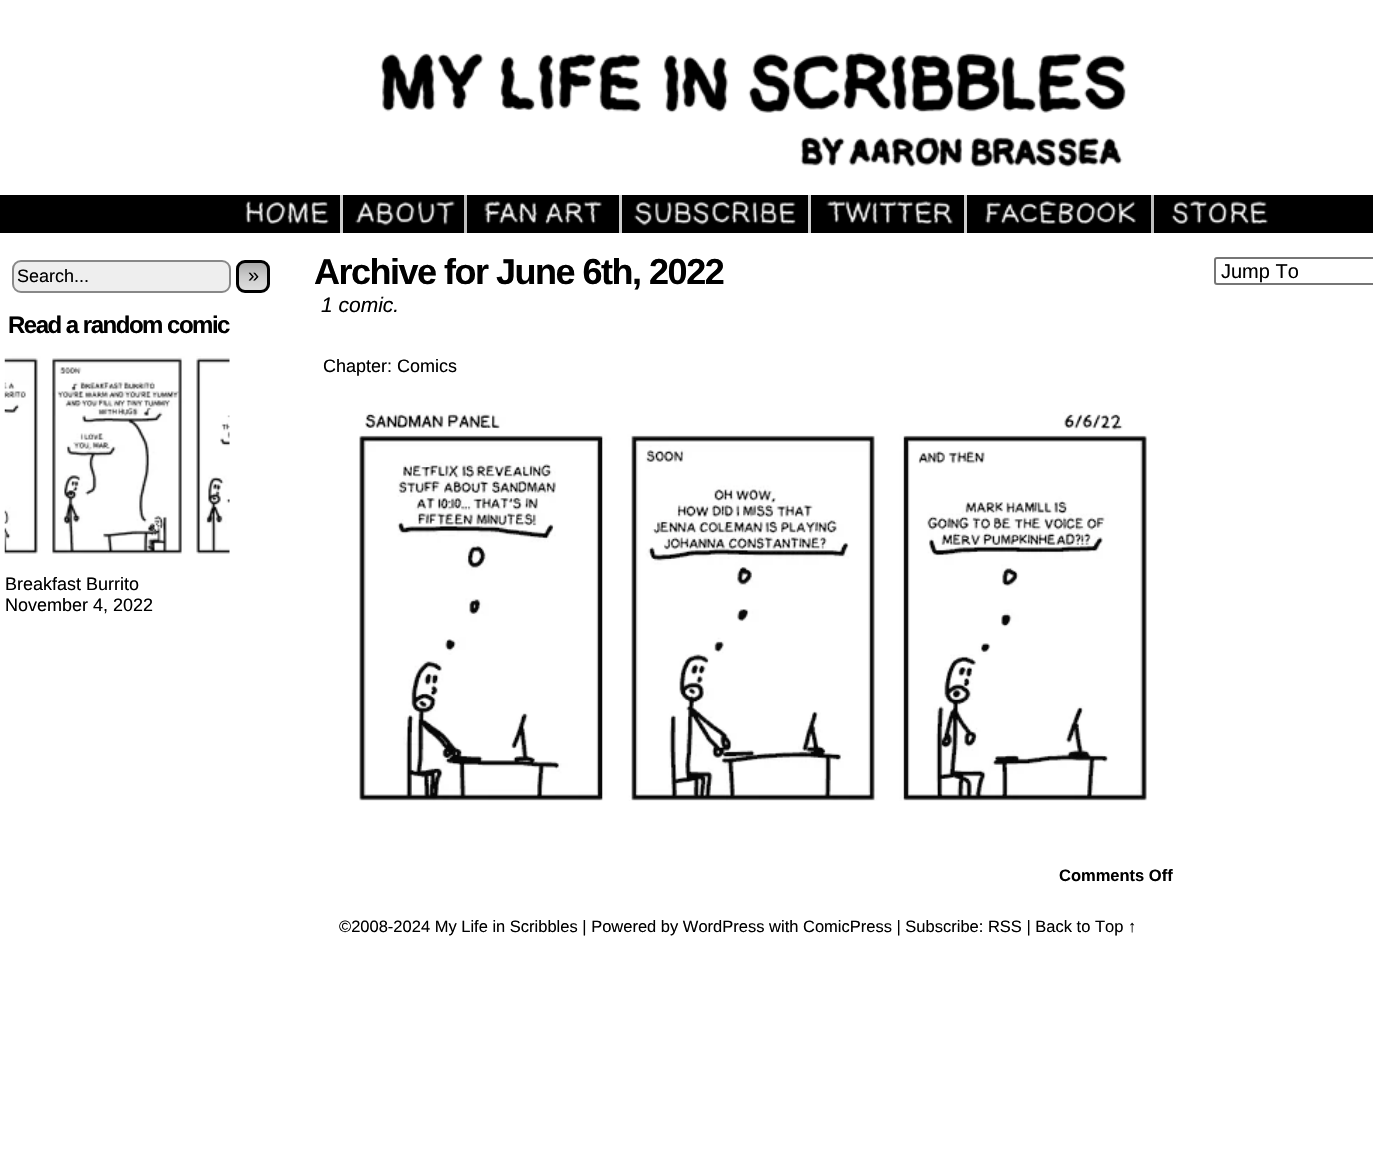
#include "include/core/SkBlurTypes.h"
#include "include/core/SkCanvas.h"
#include "include/core/SkData.h"
#include "include/core/SkFont.h"
#include "include/core/SkFontMgr.h"
#include "include/core/SkImage.h"
#include "include/core/SkMaskFilter.h"
#include "include/core/SkPaint.h"
#include "include/core/SkPathBuilder.h"
#include "include/core/SkTextBlob.h"
#include "include/effects/SkDashPathEffect.h"
#include "include/effects/SkGradientShader.h"
#include "include/utils/SkParsePath.h"

extern sk_sp<SkFontMgr> fontMgr;

static SkFont font(const char* family, int weight, float size, bool italic = false) {
    SkFontStyle style(weight, SkFontStyle::kNormal_Width,
        italic ? SkFontStyle::kItalic_Slant : SkFontStyle::kUpright_Slant);
    SkFont result(fontMgr->matchFamilyStyle(family, style), size);
    result.setSubpixel(true);
    return result;
}

static void drawLabel(SkCanvas* canvas, const char* s, float x, float y, const SkFont& font, SkColor color) {
    SkPaint ink(SkColor4f::FromColor(color));
    ink.setAntiAlias(true);
    canvas->drawString(s, x, y, font, ink);
}

static void drawTracked(SkCanvas* canvas, const char* s, float x, float y, const SkFont& font, const SkPaint& ink, float letter, float word) {
    std::vector<SkGlyphID> glyphs(font.countText(s, strlen(s), SkTextEncoding::kUTF8));
    std::vector<float> xs(glyphs.size());
    font.textToGlyphs(s, strlen(s), SkTextEncoding::kUTF8, glyphs);
    font.getXPos(glyphs, xs, x);
    float extra = 0;
    for (size_t i = 0; i < glyphs.size(); i++) {
        xs[i] += extra;
        extra += letter + word * (glyphs[i] == font.unicharToGlyph(' '));
    }
    canvas->drawTextBlob(SkTextBlob::MakeFromPosHGlyphs(glyphs, xs, y, font), 0, 0, ink);
}

static void fillRect(SkCanvas* canvas, float x, float y, float w, float h, SkColor color) {
    SkPaint ink(SkColor4f::FromColor(color));
    ink.setAntiAlias(true);
    canvas->drawRect(SkRect::MakeXYWH(x, y, w, h), ink);
}

static void drawPhoto(SkCanvas* canvas, const char* path, float x, float y, float w, float h) {
    auto image = SkImages::DeferredFromEncodedData(SkData::MakeFromFileName(path));
    canvas->drawImageRect(image, SkRect::MakeXYWH(x, y, w, h), SkSamplingOptions());
}

static SkPath parsePath(const char* data, bool evenOdd = false) {
    SkPath result = *SkParsePath::FromSVGString(data);
    if (evenOdd) result.setFillType(SkPathFillType::kEvenOdd);
    return result;
}

void draw(SkCanvas* canvas) {
    SkPaint paint;
    paint.setAntiAlias(true);
    canvas->clear(0xFFFFFFFF);
    drawPhoto(canvas, "assets/img1.png", 0, 15, 1373, 180);
    fillRect(canvas, 0, 195, 1373, 38, 0xFF000000);
    drawPhoto(canvas, "assets/img2.png", 245, 200, 84, 24);
    fillRect(canvas, 340, 195, 3, 38, 0xFFCECECE);
    drawPhoto(canvas, "assets/img3.png", 355, 200, 100, 26);
    fillRect(canvas, 464, 195, 3, 38, 0xFFBFBFBF);
    drawPhoto(canvas, "assets/img4.png", 484, 200, 118, 24);
    fillRect(canvas, 619, 195, 3, 38, 0xFFCECECE);
    drawPhoto(canvas, "assets/img5.png", 634, 200, 162, 26);
    fillRect(canvas, 808, 195, 3, 38, 0xFFCECECE);
    drawPhoto(canvas, "assets/img6.png", 826, 200, 127, 24);
    fillRect(canvas, 964, 195, 3, 38, 0xFFCECECE);
    drawPhoto(canvas, "assets/img7.png", 985, 200, 151, 24);
    fillRect(canvas, 1151, 195, 3, 38, 0xFFBFBFBF);
    drawPhoto(canvas, "assets/img8.png", 1171, 200, 97, 24);
    paint.setColor(0xFFEEEEEE);
    canvas->drawRoundRect(SkRect::MakeXYWH(13, 261, 217, 31), 8, 8, paint);
    paint.setStroke(true);
    paint.setStrokeWidth(2);
    paint.setColor(0xFF888888);
    canvas->drawRoundRect(SkRect::MakeXYWH(13, 261, 217, 31), 8, 8, paint);
    SkFont font1 = font("Liberation Sans", 400, 18);
    drawLabel(canvas, "Search...", 17, 282, font1, 0xFF000000);
    canvas->save();
    canvas->clipPath(parsePath("M245 260H261C266 260 270 264 270 269V284C270 289 266 293 261 293H245C240 293 236 289 236 284V269C236 264 240 260 245 260Z"), true);
    paint.setStroke(false);
    {
        const SkColor colors[] = {0xFFAAAAAA, 0xFFCCCCCC, 0xFFDDDDDD};
        const float stops[] = {0, 0.5f, 1};
        const SkPoint ends[] = {{253, 263}, {253, 290}};
        paint.setShader(SkGradientShader::MakeLinear(ends, colors, stops, 3, SkTileMode::kClamp));
        paint.setAlpha(255);
    }
    canvas->drawRect(SkRect::MakeXYWH(236, 263, 34, 27), paint);
    canvas->restore();
    paint.setStroke(true);
    paint.setStrokeWidth(3);
    paint.setShader(nullptr);
    paint.setColor(0xFF000000);
    canvas->drawRoundRect(SkRect::MakeXYWH(237.5f, 261.5f, 31, 30), 7.5f, 7.5f, paint);
    SkFont font2 = font("Liberation Sans", 400, 20);
    drawLabel(canvas, "»", 248, 282, font2, 0xFF000000);
    SkFont font3 = font("Liberation Sans", 700, 24);
    paint.setStroke(false);
    drawTracked(canvas, "Read a random comic", 8, 333, font3, paint, -1.5f, 0);
    drawPhoto(canvas, "assets/img9.png", 4, 356, 226, 198);
    drawLabel(canvas, "Breakfast Burrito", 5, 590, font1, 0xFF000000);
    drawLabel(canvas, "November 4, 2022", 5, 611, font1, 0xFF000000);
    SkFont font4 = font("Liberation Sans", 700, 36);
    drawTracked(canvas, "Archive for June 6th, 2022", 314, 284, font4, paint, -1.5f, 0);
    SkFont font5 = font("Liberation Sans", 400, 21, true);
    drawLabel(canvas, "1 comic.", 321, 312, font5, 0xFF000000);
    drawLabel(canvas, "Chapter: Comics", 323, 372, font1, 0xFF000000);
    drawPhoto(canvas, "assets/img10.png", 359, 412, 789, 389);
    SkFont font6 = font("Liberation Sans", 700, 16.5f);
    drawLabel(canvas, "Comments Off", 1059, 881, font6, 0xFF000000);
    paint.setStroke(true);
    paint.setStrokeWidth(2);
    paint.setColor(0xFF767676);
    canvas->drawRoundRect(SkRect::MakeXYWH(1215, 258, 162, 26), 2, 2, paint);
    drawLabel(canvas, "Jump To", 1221, 278, font2, 0xFF000000);
    SkFont font7 = font("Liberation Sans", 400, 16.5f);
    drawLabel(canvas, "©2008-2024 My Life in Scribbles | Powered by WordPress with ComicPress | Subscribe: RSS | Back to Top ↑", 339, 932, font7, 0xFF000000);
}
